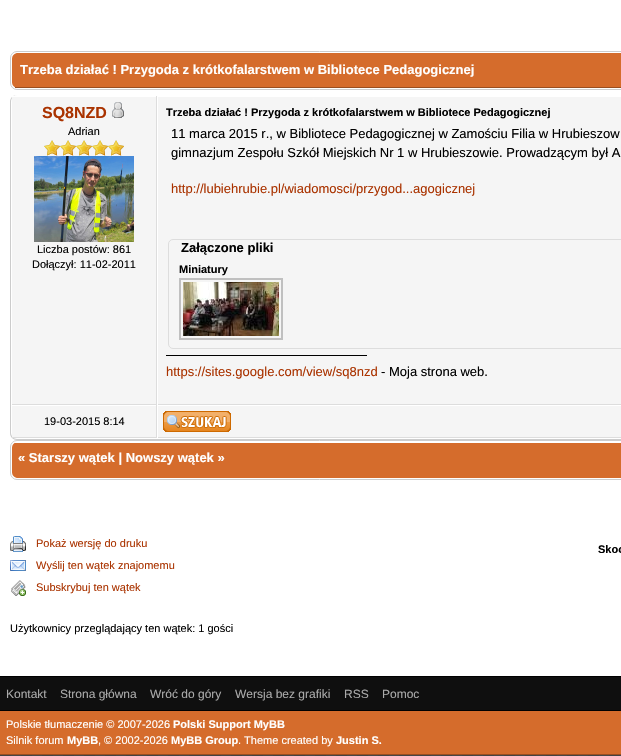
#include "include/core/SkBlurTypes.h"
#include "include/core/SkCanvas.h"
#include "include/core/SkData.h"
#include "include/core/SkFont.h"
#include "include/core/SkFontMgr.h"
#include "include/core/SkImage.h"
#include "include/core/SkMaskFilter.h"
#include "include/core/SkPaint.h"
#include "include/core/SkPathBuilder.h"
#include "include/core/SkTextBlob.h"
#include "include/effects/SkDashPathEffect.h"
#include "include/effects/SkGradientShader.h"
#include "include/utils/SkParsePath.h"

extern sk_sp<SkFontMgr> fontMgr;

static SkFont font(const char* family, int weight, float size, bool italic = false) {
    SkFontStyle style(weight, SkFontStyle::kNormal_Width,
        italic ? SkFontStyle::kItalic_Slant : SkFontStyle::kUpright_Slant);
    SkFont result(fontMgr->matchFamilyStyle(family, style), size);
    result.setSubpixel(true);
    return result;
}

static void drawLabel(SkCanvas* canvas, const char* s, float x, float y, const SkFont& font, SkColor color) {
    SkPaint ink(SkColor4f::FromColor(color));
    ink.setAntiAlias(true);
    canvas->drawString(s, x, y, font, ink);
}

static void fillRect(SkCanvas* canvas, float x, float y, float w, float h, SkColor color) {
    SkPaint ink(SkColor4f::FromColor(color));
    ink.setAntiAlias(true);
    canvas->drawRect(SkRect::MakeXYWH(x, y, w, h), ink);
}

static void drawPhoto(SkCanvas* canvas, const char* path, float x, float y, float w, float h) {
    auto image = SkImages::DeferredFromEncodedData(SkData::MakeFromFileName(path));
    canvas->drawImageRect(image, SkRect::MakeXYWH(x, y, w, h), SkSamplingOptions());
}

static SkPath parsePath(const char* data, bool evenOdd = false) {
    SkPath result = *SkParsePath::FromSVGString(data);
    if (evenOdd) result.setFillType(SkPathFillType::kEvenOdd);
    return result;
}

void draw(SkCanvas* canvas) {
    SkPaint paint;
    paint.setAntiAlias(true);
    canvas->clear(0xFFFFFFFF);
    drawPhoto(canvas, "assets/img1.png", 0, 755, 621, 1);
    fillRect(canvas, 0, 676, 621, 1, 0xFF000000);
    paint.setStroke(true);
    paint.setStrokeWidth(1);
    paint.setColor(0xFFCCCCCC);
    canvas->drawRoundRect(SkRect::MakeXYWH(10.5f, 51.5f, 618, 38), 6.5f, 6.5f, paint);
    paint.setStroke(false);
    paint.setColor(0xFFD56C2C);
    canvas->drawPath(parsePath("M18 53H621V88H18C14.5 88 12 85.5 12 82V59C12 55.5 14.5 53 18 53Z"), paint);
    fillRect(canvas, 15, 87, 606, 1, 0xFF9A4E20);
    SkFont font1 = font("Liberation Sans", 700, 13);
    drawLabel(canvas, "Trzeba działać ! Przygoda z krótkofalarstwem w Bibliotece Pedagogicznej", 20, 74, font1, 0xFFFFFFFF);
    paint.setColor(0xFFCCCCCC);
    canvas->drawPath(parsePath("M17 95H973C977 95 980 98 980 102V433C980 437 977 440 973 440H17C13 440 10 437 10 433V102C10 98 13 95 17 95ZM17 95H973C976 95 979 98 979 102V433C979 436 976 439 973 439H17C14 439 11 436 11 433V102C11 98 14 95 17 95Z", true), paint);
    fillRect(canvas, 12, 97, 144, 307, 0xFFF5F5F5);
    fillRect(canvas, 12, 96, 2, 1, 0xFFFFFFFF);
    fillRect(canvas, 156, 96, 1, 342, 0xFFDDDDDD);
    fillRect(canvas, 12, 404, 609, 1, 0xFFDDDDDD);
    SkFont font2 = font("Liberation Sans", 700, 16);
    drawLabel(canvas, "SQ8NZD", 42, 118, font2, 0xFFAA3300);
    drawPhoto(canvas, "assets/img2.png", 112, 102, 12, 16);
    SkFont font3 = font("Liberation Sans", 400, 11);
    drawLabel(canvas, "Adrian", 68, 135, font3, 0xFF000000);
    drawPhoto(canvas, "assets/img3.png", 44, 140, 16, 16);
    drawPhoto(canvas, "assets/img3.png", 60, 140, 16, 16);
    drawPhoto(canvas, "assets/img3.png", 76, 140, 16, 16);
    drawPhoto(canvas, "assets/img3.png", 92, 140, 16, 16);
    drawPhoto(canvas, "assets/img3.png", 108, 140, 16, 16);
    drawPhoto(canvas, "assets/img4.png", 34, 156, 100, 86);
    drawLabel(canvas, "Liczba postów: 861", 37, 253, font3, 0xFF000000);
    drawLabel(canvas, "Dołączył: 11-02-2011", 32, 268, font3, 0xFF000000);
    fillRect(canvas, 158, 97, 463, 307, 0xFFF5F5F5);
    fillRect(canvas, 157, 404, 1, 1, 0xFFFFFFFF);
    SkFont font4 = font("Liberation Sans", 700, 11);
    drawLabel(canvas, "Trzeba działać ! Przygoda z krótkofalarstwem w Bibliotece Pedagogicznej", 166, 116, font4, 0xFF000000);
    SkFont font5 = font("Liberation Sans", 400, 13);
    drawLabel(canvas, "11 marca 2015 r., w Bibliotece Pedagogicznej w Zamościu Filia w Hrubieszow", 171, 138, font5, 0xFF000000);
    drawLabel(canvas, "gimnazjum Zespołu Szkół Miejskich Nr 1 w Hrubieszowie. Prowadzącym był A", 171, 157, font5, 0xFF000000);
    drawLabel(canvas, "http://lubiehrubie.pl/wiadomosci/przygod...agogicznej", 171, 193, font5, 0xFFAA3300);
    paint.setStroke(true);
    paint.setColor(0xFFDDDDDD);
    canvas->drawRoundRect(SkRect::MakeXYWH(168.5f, 239.5f, 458, 109), 4.5f, 4.5f, paint);
    drawLabel(canvas, "Załączone pliki", 181, 252, font1, 0xFF000000);
    drawLabel(canvas, "Miniatury", 179, 273, font4, 0xFF000000);
    paint.setStrokeWidth(2);
    paint.setColor(0xFFC0C0C0);
    canvas->drawRect(SkRect::MakeXYWH(180, 279, 102, 60), paint);
    drawPhoto(canvas, "assets/img5.png", 183, 282, 96, 54);
    fillRect(canvas, 166, 355, 201, 1, 0xFF000000);
    drawLabel(canvas, "https://sites.google.com/view/sq8nzd", 166, 376, font5, 0xFFAA3300);
    drawLabel(canvas, "- Moja strona web.", 381, 376, font5, 0xFF000000);
    fillRect(canvas, 12, 406, 144, 31, 0xFFF5F5F5);
    fillRect(canvas, 12, 437, 609, 1, 0xFFDDDDDD);
    drawLabel(canvas, "19-03-2015 8:14", 44, 425, font3, 0xFF000000);
    fillRect(canvas, 158, 406, 463, 31, 0xFFF5F5F5);
    fillRect(canvas, 157, 437, 1, 1, 0xFFFFFFFF);
    drawPhoto(canvas, "assets/img6.png", 163, 411, 68, 21);
    paint.setStrokeWidth(1);
    paint.setColor(0xFFCCCCCC);
    canvas->drawRoundRect(SkRect::MakeXYWH(10.5f, 440.5f, 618, 39), 6.5f, 6.5f, paint);
    paint.setStroke(false);
    paint.setColor(0xFFD56C2C);
    canvas->drawPath(parsePath("M18 442H621V478H18C14.5 478 12 475.5 12 472V448C12 444.5 14.5 442 18 442Z"), paint);
    fillRect(canvas, 15, 442, 606, 1, 0xFFFFFFFF);
    drawLabel(canvas, "« Starszy wątek | Nowszy wątek »", 18, 462, font1, 0xFFFFFFFF);
    drawPhoto(canvas, "assets/img7.png", 10, 536, 16, 16);
    drawLabel(canvas, "Pokaż wersję do druku", 36, 547, font3, 0xFFAA3300);
    drawPhoto(canvas, "assets/img8.png", 10, 560, 16, 11);
    drawLabel(canvas, "Wyślij ten wątek znajomemu", 36, 569, font3, 0xFFAA3300);
    drawPhoto(canvas, "assets/img9.png", 11, 580, 15, 16);
    drawLabel(canvas, "Subskrybuj ten wątek", 36, 591, font3, 0xFFAA3300);
    drawLabel(canvas, "Skoc", 598, 553, font4, 0xFF000000);
    drawLabel(canvas, "Użytkownicy przeglądający ten wątek: 1 gości", 10, 632, font3, 0xFF000000);
    fillRect(canvas, 0, 677, 621, 33, 0xFF0F0F0F);
    SkFont font6 = font("Liberation Sans", 400, 12);
    drawLabel(canvas, "Kontakt", 6, 698, font6, 0xFFAAAAAA);
    drawLabel(canvas, "Strona główna", 60, 698, font6, 0xFFAAAAAA);
    drawLabel(canvas, "Wróć do góry", 150, 698, font6, 0xFFAAAAAA);
    drawLabel(canvas, "Wersja bez grafiki", 235, 698, font6, 0xFFAAAAAA);
    drawLabel(canvas, "RSS", 344, 698, font6, 0xFFAAAAAA);
    drawLabel(canvas, "Pomoc", 382, 698, font6, 0xFFAAAAAA);
    fillRect(canvas, 0, 711, 621, 43, 0xFFD56C2C);
    fillRect(canvas, 0, 710, 621, 1, 0xFF000000);
    fillRect(canvas, 0, 754, 621, 1, 0xFF9A4E20);
    drawLabel(canvas, "Polskie tłumaczenie © 2007-2026", 6, 728, font3, 0xFFFFFFFF);
    drawLabel(canvas, "Polski Support MyBB", 173, 728, font4, 0xFFFFFFFF);
    drawLabel(canvas, "Silnik forum", 6, 744, font3, 0xFFFFFFFF);
    drawLabel(canvas, "MyBB", 67, 744, font4, 0xFFFFFFFF);
    drawLabel(canvas, ", © 2002-2026", 98, 744, font3, 0xFFFFFFFF);
    drawLabel(canvas, "MyBB Group", 171, 744, font4, 0xFFFFFFFF);
    drawLabel(canvas, ". Theme created by", 238, 744, font3, 0xFFFFFFFF);
    drawLabel(canvas, "Justin S.", 336, 744, font4, 0xFFFFFFFF);
}
